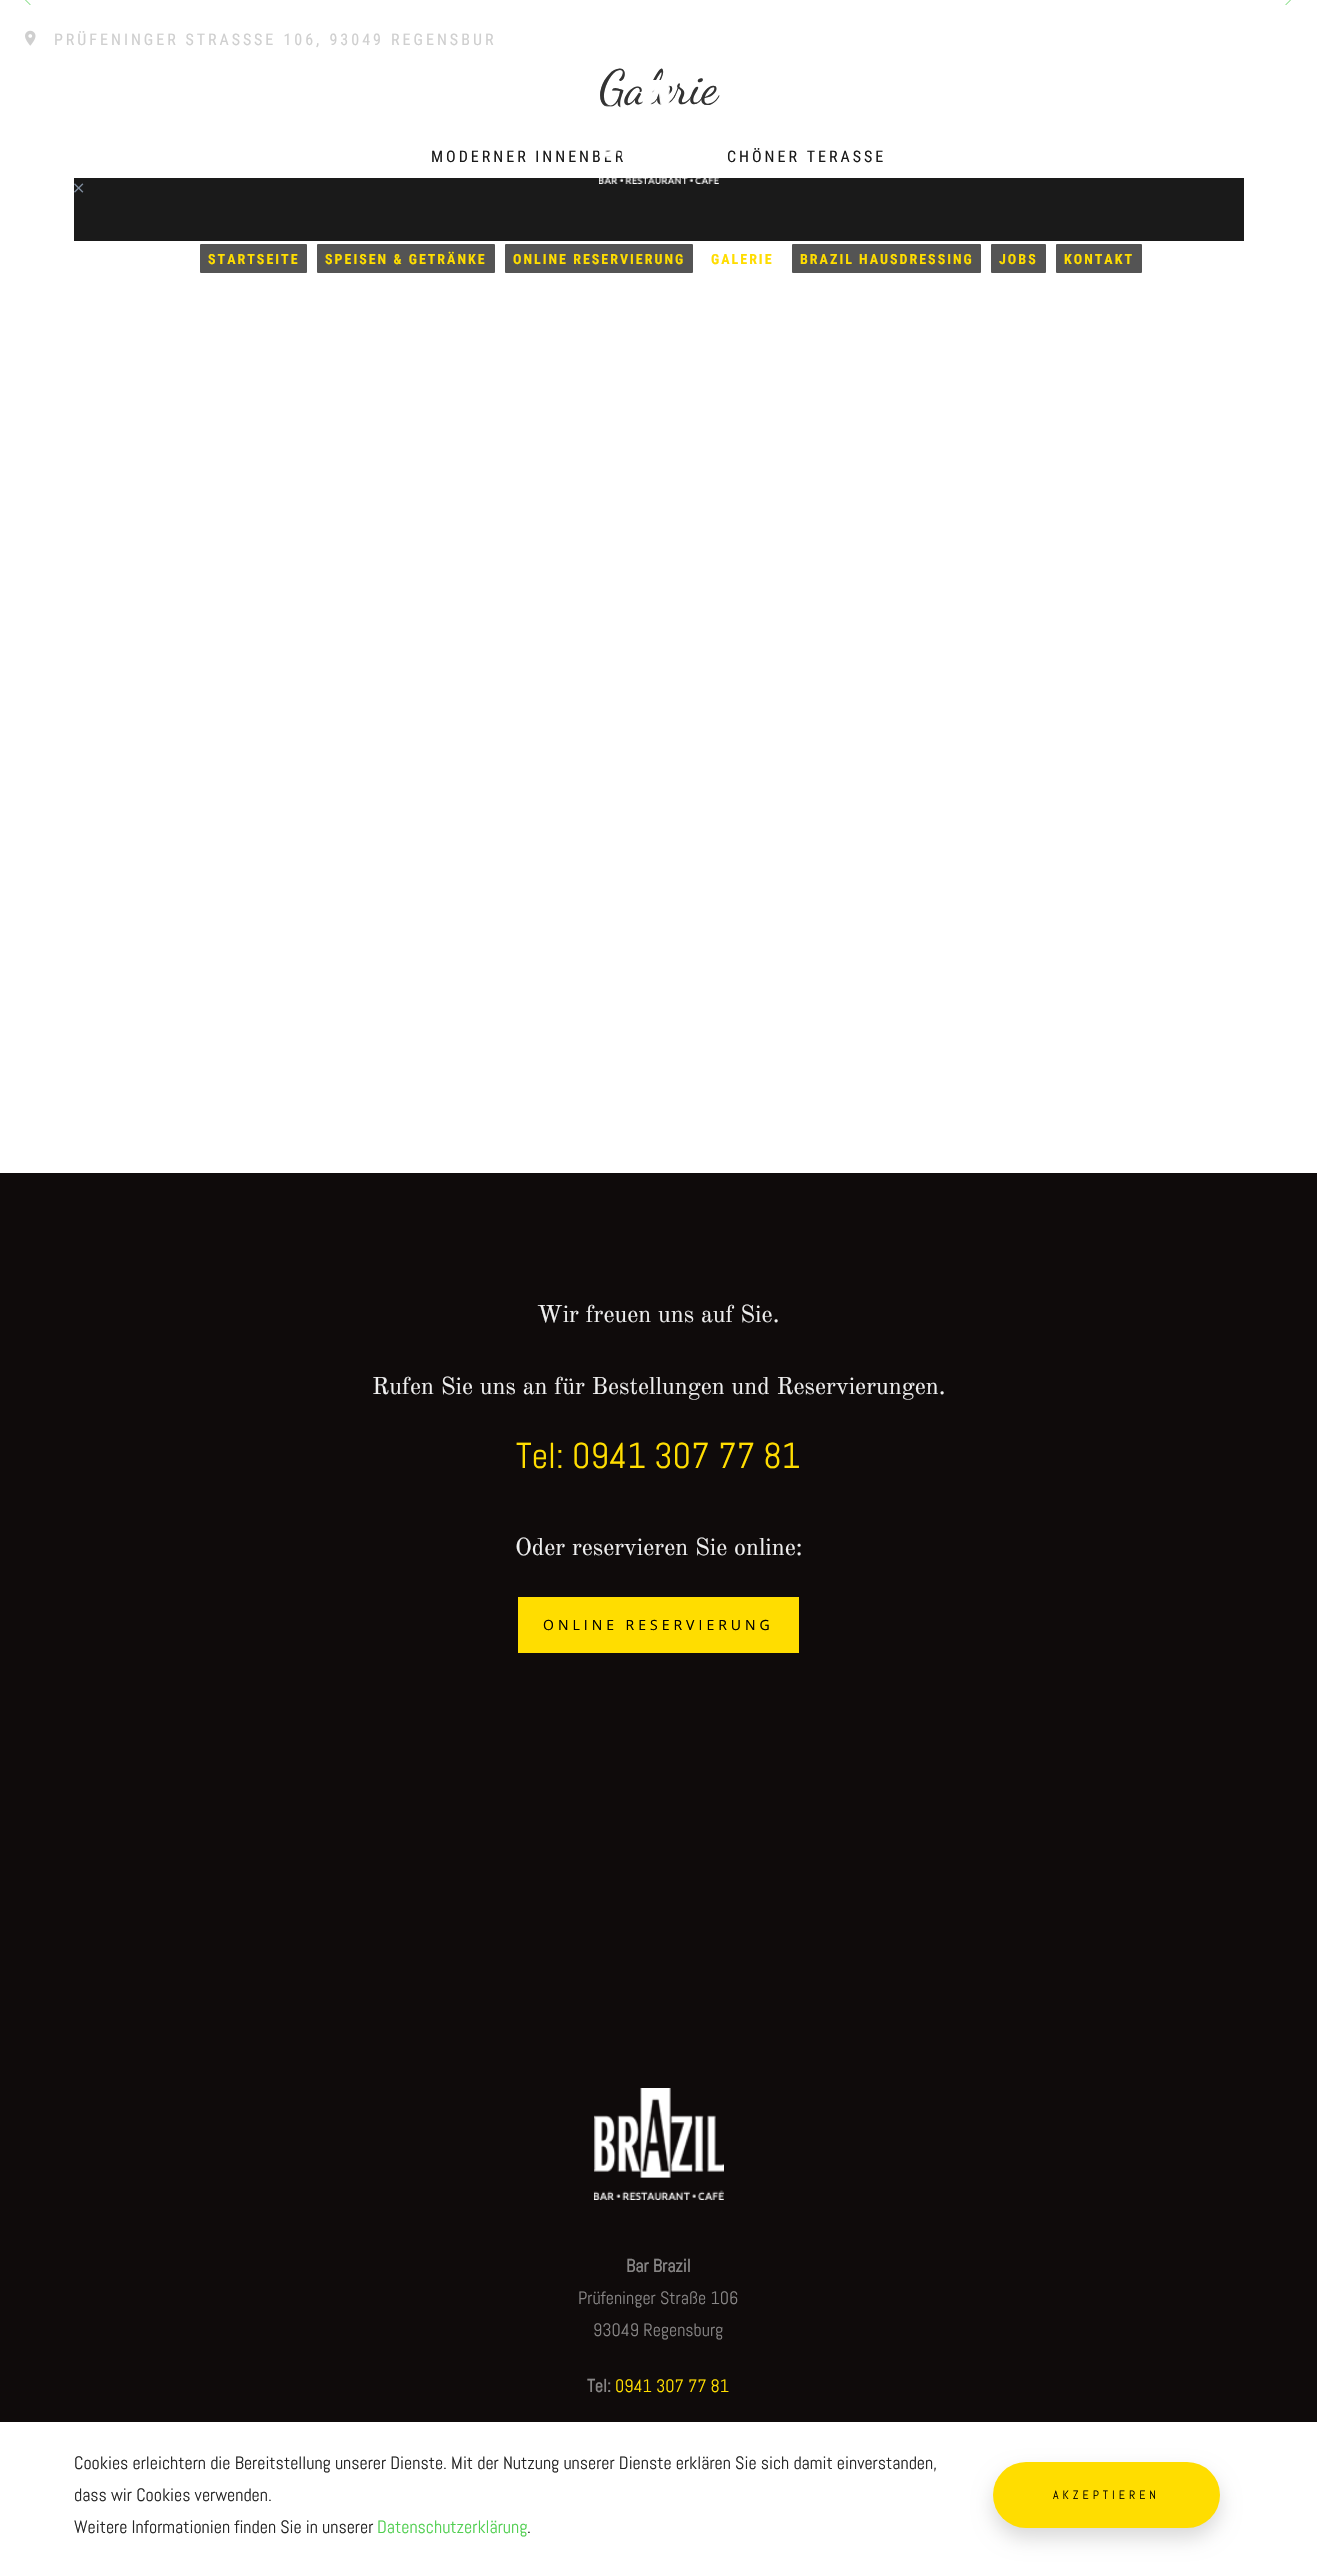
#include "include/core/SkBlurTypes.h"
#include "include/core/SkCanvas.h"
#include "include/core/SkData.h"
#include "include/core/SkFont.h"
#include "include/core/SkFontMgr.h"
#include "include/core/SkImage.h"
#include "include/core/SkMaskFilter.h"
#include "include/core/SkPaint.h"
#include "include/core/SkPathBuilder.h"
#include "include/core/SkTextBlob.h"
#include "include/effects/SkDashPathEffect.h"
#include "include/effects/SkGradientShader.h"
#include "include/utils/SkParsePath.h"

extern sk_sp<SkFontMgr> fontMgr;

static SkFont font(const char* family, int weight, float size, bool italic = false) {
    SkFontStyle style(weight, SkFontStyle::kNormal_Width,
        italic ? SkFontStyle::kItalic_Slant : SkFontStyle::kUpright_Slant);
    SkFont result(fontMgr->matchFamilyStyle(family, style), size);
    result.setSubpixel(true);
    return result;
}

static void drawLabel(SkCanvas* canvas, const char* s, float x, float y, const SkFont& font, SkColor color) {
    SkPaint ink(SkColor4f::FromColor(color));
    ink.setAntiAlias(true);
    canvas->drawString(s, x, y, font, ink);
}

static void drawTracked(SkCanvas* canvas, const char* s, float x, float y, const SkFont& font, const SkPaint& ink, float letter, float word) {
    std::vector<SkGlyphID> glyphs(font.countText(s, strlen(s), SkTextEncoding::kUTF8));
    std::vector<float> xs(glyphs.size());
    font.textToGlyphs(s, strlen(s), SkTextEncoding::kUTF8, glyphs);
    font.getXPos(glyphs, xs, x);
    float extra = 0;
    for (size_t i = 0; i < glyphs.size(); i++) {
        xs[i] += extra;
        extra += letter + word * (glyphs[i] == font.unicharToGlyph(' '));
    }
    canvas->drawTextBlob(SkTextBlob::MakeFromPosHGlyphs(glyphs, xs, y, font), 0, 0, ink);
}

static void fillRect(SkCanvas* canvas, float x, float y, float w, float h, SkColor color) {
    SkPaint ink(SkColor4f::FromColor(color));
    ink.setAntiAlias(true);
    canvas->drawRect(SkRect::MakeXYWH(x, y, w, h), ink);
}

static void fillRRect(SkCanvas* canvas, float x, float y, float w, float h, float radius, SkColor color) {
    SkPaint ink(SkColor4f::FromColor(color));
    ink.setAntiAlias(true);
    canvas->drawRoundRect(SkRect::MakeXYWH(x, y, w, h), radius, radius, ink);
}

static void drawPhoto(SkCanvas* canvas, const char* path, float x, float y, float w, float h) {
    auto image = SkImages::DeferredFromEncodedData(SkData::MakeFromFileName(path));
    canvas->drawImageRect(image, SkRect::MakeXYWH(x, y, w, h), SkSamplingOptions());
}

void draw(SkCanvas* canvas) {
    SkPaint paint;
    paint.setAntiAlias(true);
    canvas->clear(0xFFFFFFFF);
    drawPhoto(canvas, "assets/img1.png", 25, 30, 11, 16);
    SkFont font1 = font("Roboto Condensed", 400, 16);
    paint.setColor(0xFFCFCFCF);
    drawTracked(canvas, "PRÜFENINGER STRASS", 54, 45, font1, paint, 3, 0);
    drawTracked(canvas, "SE 106, 93049 REGENSBUR", 254, 45, font1, paint, 3, 0.5f);
    SkFont font2 = font("Dancing Script", 400, 48);
    drawLabel(canvas, "Galerie", 599, 103, font2, 0xFF333333);
    paint.setColor(0xFF1A1A1A);
    drawTracked(canvas, "MODERNER INNENBER", 431, 162, font1, paint, 3, 0);
    fillRect(canvas, 74, 178, 1170, 63, 0xFF1A1A1A);
    drawPhoto(canvas, "assets/img2.png", 599, 80, 120, 104);
    fillRRect(canvas, 200, 244, 107, 29, 1, 0xFF545454);
    SkFont font3 = font("Roboto Condensed", 700, 14);
    paint.setColor(0xFFFFDD00);
    drawTracked(canvas, "STARTSEITE", 208, 264, font3, paint, 2, 0);
    fillRRect(canvas, 317, 244, 178, 29, 1, 0xFF545454);
    drawTracked(canvas, "SPEISEN & GETRÄNKE", 325, 264, font3, paint, 2, 0);
    fillRRect(canvas, 505, 244, 188, 29, 1, 0xFF545454);
    drawTracked(canvas, "ONLINE RESERVIERUNG", 513, 264, font3, paint, 2, 0);
    drawTracked(canvas, "GALERIE", 711, 264, font3, paint, 2, 0);
    fillRRect(canvas, 792, 244, 189, 29, 1, 0xFF545454);
    drawTracked(canvas, "BRAZIL HAUSDRESSING", 800, 264, font3, paint, 2, 0);
    fillRRect(canvas, 991, 244, 55, 29, 1, 0xFF545454);
    drawTracked(canvas, "JOBS", 999, 264, font3, paint, 2, 0);
    fillRRect(canvas, 1056, 244, 86, 29, 1, 0xFF545454);
    drawTracked(canvas, "KONTAKT", 1064, 264, font3, paint, 2, 0);
    drawPhoto(canvas, "assets/img3.png", 25, 0, 6, 5);
    drawPhoto(canvas, "assets/img4.png", 1285, 0, 6, 5);
    paint.setColor(0xFF1A1A1A);
    drawTracked(canvas, "CHÖNER TERASSE", 727, 162, font1, paint, 3, 0);
    drawPhoto(canvas, "assets/img5.png", 74, 183, 10, 10);
    fillRect(canvas, 0, 1173, 1317, 1249, 0xFF0F0B0B);
    SkFont font4 = font("Old Standard TT", 400, 24);
    drawLabel(canvas, "Wir freuen uns auf Sie.", 537, 1322, font4, 0xFFEFEFEF);
    drawLabel(canvas, "Rufen Sie uns an für Bestellungen und Reservierungen.", 372, 1394, font4, 0xFFEFEFEF);
    SkFont font5 = font("Abel", 400, 36);
    drawLabel(canvas, "Tel: 0941 307 77 81", 516, 1468, font5, 0xFFFFDD00);
    drawLabel(canvas, "Oder reservieren Sie online:", 515, 1555, font4, 0xFFEFEFEF);
    fillRect(canvas, 518, 1597, 281, 56, 0xFFFFDD00);
    SkFont font6 = font("Open Sans", 400, 14);
    paint.setColor(0xFF000000);
    drawTracked(canvas, "ONLINE RESERVIERUNG", 543, 1630, font6, paint, 4, 0);
    drawPhoto(canvas, "assets/img6.png", 594, 2088, 130, 112);
    SkFont font7 = font("Abel", 700, 18);
    drawLabel(canvas, "Bar Brazil", 626, 2272, font7, 0xFF878585);
    SkFont font8 = font("Abel", 400, 18);
    drawLabel(canvas, "Prüfeninger Straße 106", 578, 2304, font8, 0xFF878585);
    drawLabel(canvas, "93049 Regensburg", 593, 2336, font8, 0xFF878585);
    drawLabel(canvas, "Tel:", 587, 2392, font7, 0xFF878585);
    drawLabel(canvas, "0941 307 77 81", 615, 2392, font8, 0xFFFFDD00);
    drawLabel(canvas, "Cookies erleichtern die Bereitstellung unserer Dienste. Mit der Nutzung unserer Dienste erklären Sie sich damit einverstanden,", 74, 2469, font8, 0xFF242424);
    drawLabel(canvas, "dass wir Cookies verwenden.", 74, 2501, font8, 0xFF242424);
    drawLabel(canvas, "Weitere Informationien finden Sie in unserer", 74, 2533, font8, 0xFF242424);
    drawLabel(canvas, "Datenschutzerklärung", 377, 2533, font8, 0xFF51CF51);
    drawLabel(canvas, ".", 527, 2533, font8, 0xFF242424);
    paint.setColor(0x26000000);
    paint.setMaskFilter(SkMaskFilter::MakeBlur(kNormal_SkBlurStyle, 10));
    canvas->drawRoundRect(SkRect::MakeXYWH(993, 2472, 227, 66), 33, 33, paint);
    paint.setMaskFilter(nullptr);
    fillRRect(canvas, 993, 2462, 227, 66, 33, 0xFFFFDD00);
    SkFont font9 = font("Abel", 400, 12);
    paint.setColor(0xFF000000);
    drawTracked(canvas, "AKZEPTIEREN", 1053, 2499, font9, paint, 4, 0);
}
